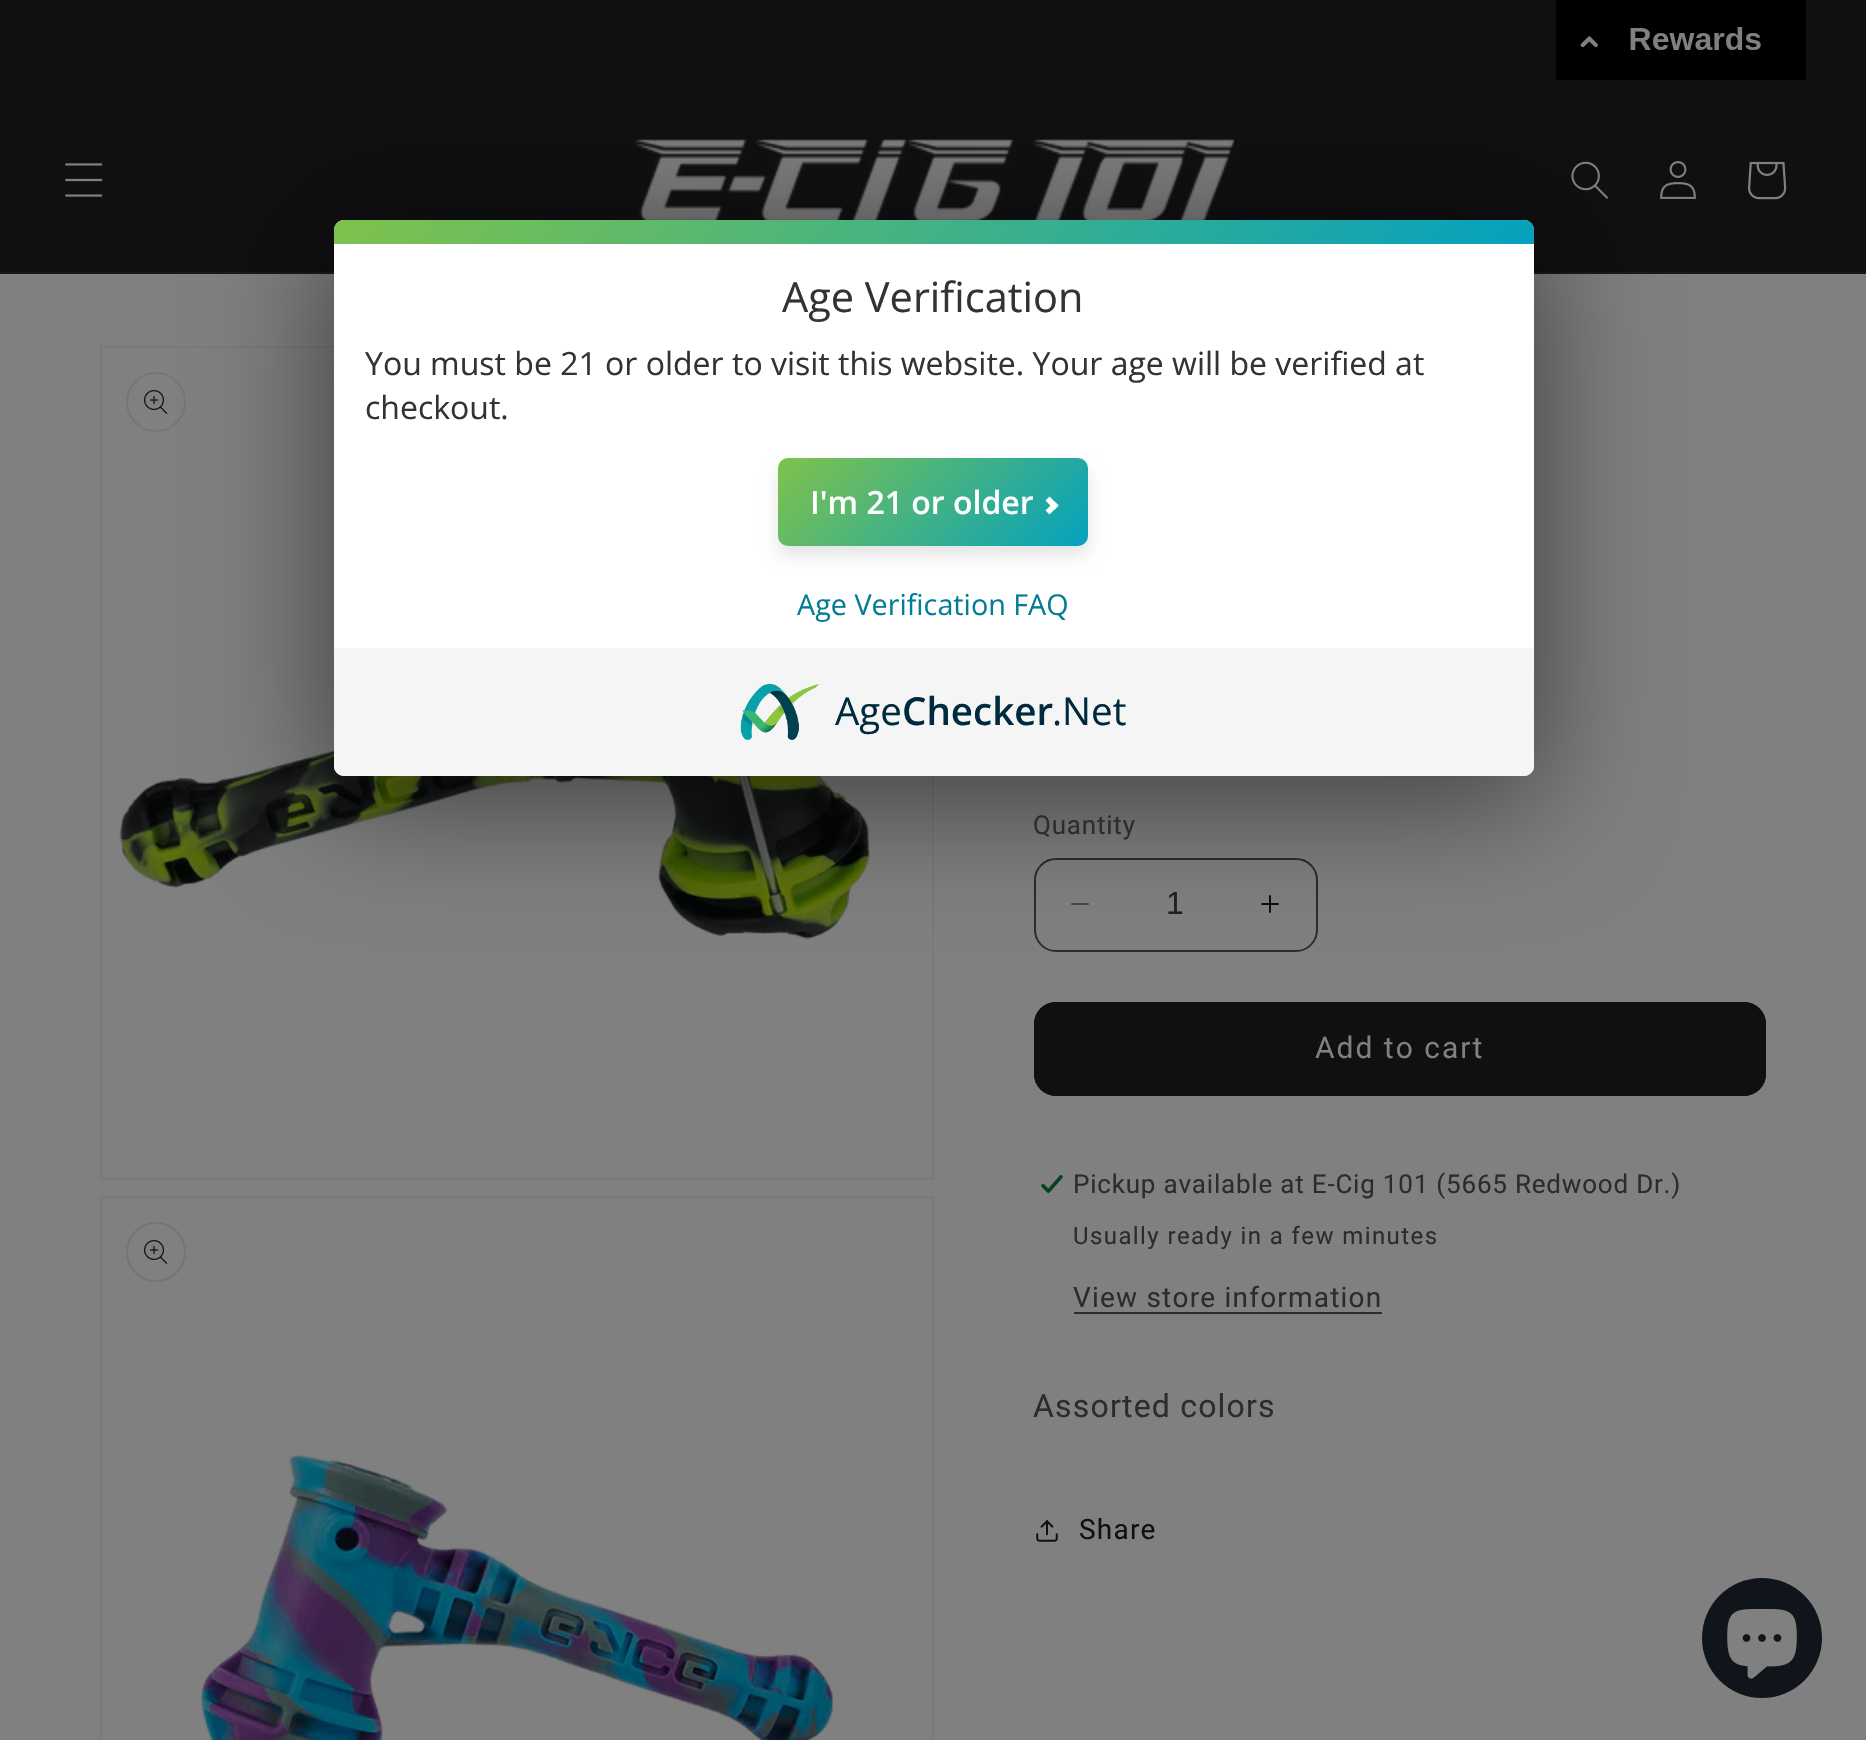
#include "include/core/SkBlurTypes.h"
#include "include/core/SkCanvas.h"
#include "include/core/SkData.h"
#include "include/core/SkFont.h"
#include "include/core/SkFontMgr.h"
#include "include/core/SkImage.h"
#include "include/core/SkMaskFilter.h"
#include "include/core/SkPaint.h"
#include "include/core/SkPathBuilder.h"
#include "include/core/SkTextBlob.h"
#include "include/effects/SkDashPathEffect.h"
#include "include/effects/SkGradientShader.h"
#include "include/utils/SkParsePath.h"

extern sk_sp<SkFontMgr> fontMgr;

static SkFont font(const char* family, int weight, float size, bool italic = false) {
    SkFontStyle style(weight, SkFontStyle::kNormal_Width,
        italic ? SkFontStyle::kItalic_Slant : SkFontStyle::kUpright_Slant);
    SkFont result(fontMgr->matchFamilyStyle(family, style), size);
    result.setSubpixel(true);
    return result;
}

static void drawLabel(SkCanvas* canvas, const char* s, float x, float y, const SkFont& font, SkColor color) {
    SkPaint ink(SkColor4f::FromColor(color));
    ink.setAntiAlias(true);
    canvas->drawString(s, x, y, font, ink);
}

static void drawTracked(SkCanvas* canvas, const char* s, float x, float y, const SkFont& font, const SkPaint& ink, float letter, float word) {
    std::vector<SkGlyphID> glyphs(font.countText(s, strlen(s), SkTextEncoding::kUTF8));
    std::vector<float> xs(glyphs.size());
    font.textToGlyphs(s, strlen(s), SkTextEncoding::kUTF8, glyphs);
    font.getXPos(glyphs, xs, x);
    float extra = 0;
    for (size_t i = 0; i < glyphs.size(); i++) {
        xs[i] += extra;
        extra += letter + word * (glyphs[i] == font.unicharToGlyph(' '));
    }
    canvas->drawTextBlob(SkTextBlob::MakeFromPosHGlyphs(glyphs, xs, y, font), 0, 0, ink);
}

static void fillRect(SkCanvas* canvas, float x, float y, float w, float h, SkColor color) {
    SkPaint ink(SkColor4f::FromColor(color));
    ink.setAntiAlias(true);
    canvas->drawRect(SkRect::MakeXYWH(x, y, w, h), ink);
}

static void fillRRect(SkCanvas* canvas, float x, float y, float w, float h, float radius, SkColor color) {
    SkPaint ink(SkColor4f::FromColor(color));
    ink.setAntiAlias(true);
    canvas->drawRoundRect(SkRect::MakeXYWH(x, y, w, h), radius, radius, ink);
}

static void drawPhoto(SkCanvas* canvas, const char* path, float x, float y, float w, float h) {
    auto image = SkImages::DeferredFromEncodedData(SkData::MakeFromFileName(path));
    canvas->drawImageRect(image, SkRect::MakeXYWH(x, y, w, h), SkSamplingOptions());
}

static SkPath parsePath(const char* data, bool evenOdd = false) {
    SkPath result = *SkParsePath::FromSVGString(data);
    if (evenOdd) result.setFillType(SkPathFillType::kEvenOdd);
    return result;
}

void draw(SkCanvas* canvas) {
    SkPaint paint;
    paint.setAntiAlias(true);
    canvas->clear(0xFF808080);
    fillRect(canvas, 0, 0, 1866, 272, 0xFF100F12);
    fillRect(canvas, 0, 272, 1866, 2, 0xFF19181B);
    drawPhoto(canvas, "assets/img1.png", 65, 163, 38, 34);
    drawPhoto(canvas, "assets/img2.png", 634, 139, 600, 81);
    drawPhoto(canvas, "assets/img3.png", 1571, 161, 37, 38);
    drawPhoto(canvas, "assets/img4.png", 1660, 161, 36, 38);
    drawPhoto(canvas, "assets/img5.png", 1748, 161, 39, 39);
    drawPhoto(canvas, "assets/img6.png", 1556, 0, 250, 80);
    paint.setStroke(true);
    paint.setStrokeWidth(2);
    paint.setColor(0xFF7A7A7A);
    canvas->drawRect(SkRect::MakeXYWH(101, 347, 832, 832), paint);
    paint.setColor(0xFF757575);
    canvas->drawCircle(156, 402, 29, paint);
    drawPhoto(canvas, "assets/img8.png", 144, 390, 24, 24);
    drawPhoto(canvas, "assets/img9.png", 119, 750, 751, 189);
    drawPhoto(canvas, "assets/img11.png", 1071, 903, 18, 2);
    drawPhoto(canvas, "assets/img12.png", 1261, 895, 18, 18);
    paint.setColor(0xBF100F12);
    canvas->drawRoundRect(SkRect::MakeXYWH(1035, 859, 282, 92), 21, 21, paint);
    paint.setStroke(false);
    paint.setColor(0x80000000);
    paint.setMaskFilter(SkMaskFilter::MakeBlur(kNormal_SkBlurStyle, 64));
    canvas->drawRoundRect(SkRect::MakeXYWH(328, 234, 1212, 568), 16, 16, paint);
    paint.setMaskFilter(nullptr);
    fillRRect(canvas, 334, 220, 1200, 556, 10, 0xFFFFFFFF);
    {
        const SkColor colors[] = {0xFF7FC24C, 0xFF04A1BF};
        const float stops[] = {0, 1};
        const SkPoint ends[] = {{628, -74}, {1240, 538}};
        paint.setShader(SkGradientShader::MakeLinear(ends, colors, stops, 2, SkTileMode::kClamp));
        paint.setAlpha(255);
    }
    canvas->drawPath(parsePath("M344 220H1524C1529.5 220 1534 224.5 1534 230V244H334V230C334 224.5 338.5 220 344 220Z"), paint);
    SkFont font1 = font("Open Sans", 400, 41.5f);
    drawLabel(canvas, "Age Verification", 782, 312, font1, 0xFF333333);
    SkFont font2 = font("Open Sans", 400, 32);
    drawLabel(canvas, "You must be 21 or older to visit this website. Your age will be verified at", 365, 375, font2, 0xFF333333);
    drawLabel(canvas, "checkout.", 365, 419, font2, 0xFF333333);
    paint.setShader(nullptr);
    paint.setColor(0x1A000000);
    paint.setMaskFilter(SkMaskFilter::MakeBlur(kNormal_SkBlurStyle, 8));
    canvas->drawRoundRect(SkRect::MakeXYWH(778, 468, 310, 88), 10, 10, paint);
    paint.setMaskFilter(nullptr);
    {
        const SkColor colors[] = {0xFF7FC24C, 0xFF04A1BF};
        const float stops[] = {0, 1};
        const SkPoint ends[] = {{834, 403}, {1033, 602}};
        paint.setShader(SkGradientShader::MakeLinear(ends, colors, stops, 2, SkTileMode::kClamp));
        paint.setAlpha(255);
    }
    canvas->drawRoundRect(SkRect::MakeXYWH(778, 458, 310, 88), 10, 10, paint);
    SkFont font3 = font("Open Sans", 600, 32);
    drawLabel(canvas, "I'm 21 or older", 810, 514, font3, 0xFFFFFFFF);
    paint.setShader(nullptr);
    paint.setColor(0xFFFFFFFF);
    canvas->drawPath(parsePath("M1045.5 500.5L1049.5 496.5L1058.5 505.5L1054.5 510Z"), paint);
    canvas->drawPath(parsePath("M1045.5 510.5L1054.5 501.5L1058.5 505.5L1049.5 514.5Z"), paint);
    SkFont font4 = font("Open Sans", 400, 28.75f);
    drawLabel(canvas, "Age Verification FAQ", 797, 615, font4, 0xFF037D96);
    paint.setColor(0xFFF5F5F5);
    canvas->drawPath(parsePath("M334 648H1534V766C1534 771.5 1529.5 776 1524 776H344C338.5 776 334 771.5 334 766Z"), paint);
    drawPhoto(canvas, "assets/img7.png", 740, 684, 79, 56);
    SkFont font5 = font("Open Sans", 400, 38.5f);
    drawLabel(canvas, "Age", 835, 725, font5, 0xFF002B3E);
    SkFont font6 = font("Open Sans", 600, 38.5f);
    drawLabel(canvas, "Checker", 902, 725, font6, 0xFF002B3E);
    drawLabel(canvas, ".Net", 1052, 725, font5, 0xFF002B3E);
    paint.setStroke(true);
    paint.setColor(0xFF7A7A7A);
    canvas->drawRect(SkRect::MakeXYWH(101, 1197, 832, 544), paint);
    paint.setColor(0xFF757575);
    canvas->drawCircle(156, 1252, 29, paint);
    drawPhoto(canvas, "assets/img8.png", 144, 1240, 24, 24);
    drawPhoto(canvas, "assets/img10.png", 201, 1454, 633, 286);
    SkFont font7 = font("Roboto", 400, 26);
    paint.setStroke(false);
    paint.setColor(0xFF2C2B2D);
    drawTracked(canvas, "Quantity", 1033, 834, font7, paint, 0.8f, 0);
    SkFont font8 = font("Liberation Sans", 400, 32);
    drawLabel(canvas, "1", 1166, 914, font8, 0xFF212022);
    fillRRect(canvas, 1034, 1002, 732, 94, 22, 0xFF100F12);
    paint.setStroke(true);
    paint.setColor(0xFF100F12);
    canvas->drawRoundRect(SkRect::MakeXYWH(1035, 1003, 730, 92), 21, 21, paint);
    SkFont font9 = font("Roboto", 400, 30);
    paint.setStroke(false);
    paint.setColor(0xFF808080);
    drawTracked(canvas, "Add to cart", 1315, 1058, font9, paint, 2, 0);
    drawPhoto(canvas, "assets/img13.png", 1041, 1175, 22, 18);
    paint.setColor(0xFF2C2B2D);
    drawTracked(canvas, "Pickup available at E-Cig 101 (5665 Redwood Dr.)", 1073, 1193, font7, paint, 0.8f, 0);
    SkFont font10 = font("Roboto", 400, 24);
    drawTracked(canvas, "Usually ready in a few minutes", 1073, 1244, font10, paint, 1.4f, 0);
    SkFont font11 = font("Roboto", 400, 28);
    drawTracked(canvas, "View store information", 1073, 1307, font11, paint, 1.2f, 0);
    fillRect(canvas, 1074, 1312, 308, 2, 0xFF2C2B2D);
    SkFont font12 = font("Roboto", 400, 32);
    drawTracked(canvas, "Assorted colors", 1033, 1417, font12, paint, 1.2f, 0);
    drawPhoto(canvas, "assets/img14.png", 1036, 1520, 22, 22);
    paint.setColor(0xFF100F12);
    drawTracked(canvas, "Share", 1079, 1539, font11, paint, 1.2f, 0);
    paint.setColor(0xFF10151B);
    canvas->drawCircle(1762, 1638, 60, paint);
    drawPhoto(canvas, "assets/img15.png", 1727, 1609, 70, 70);
}
